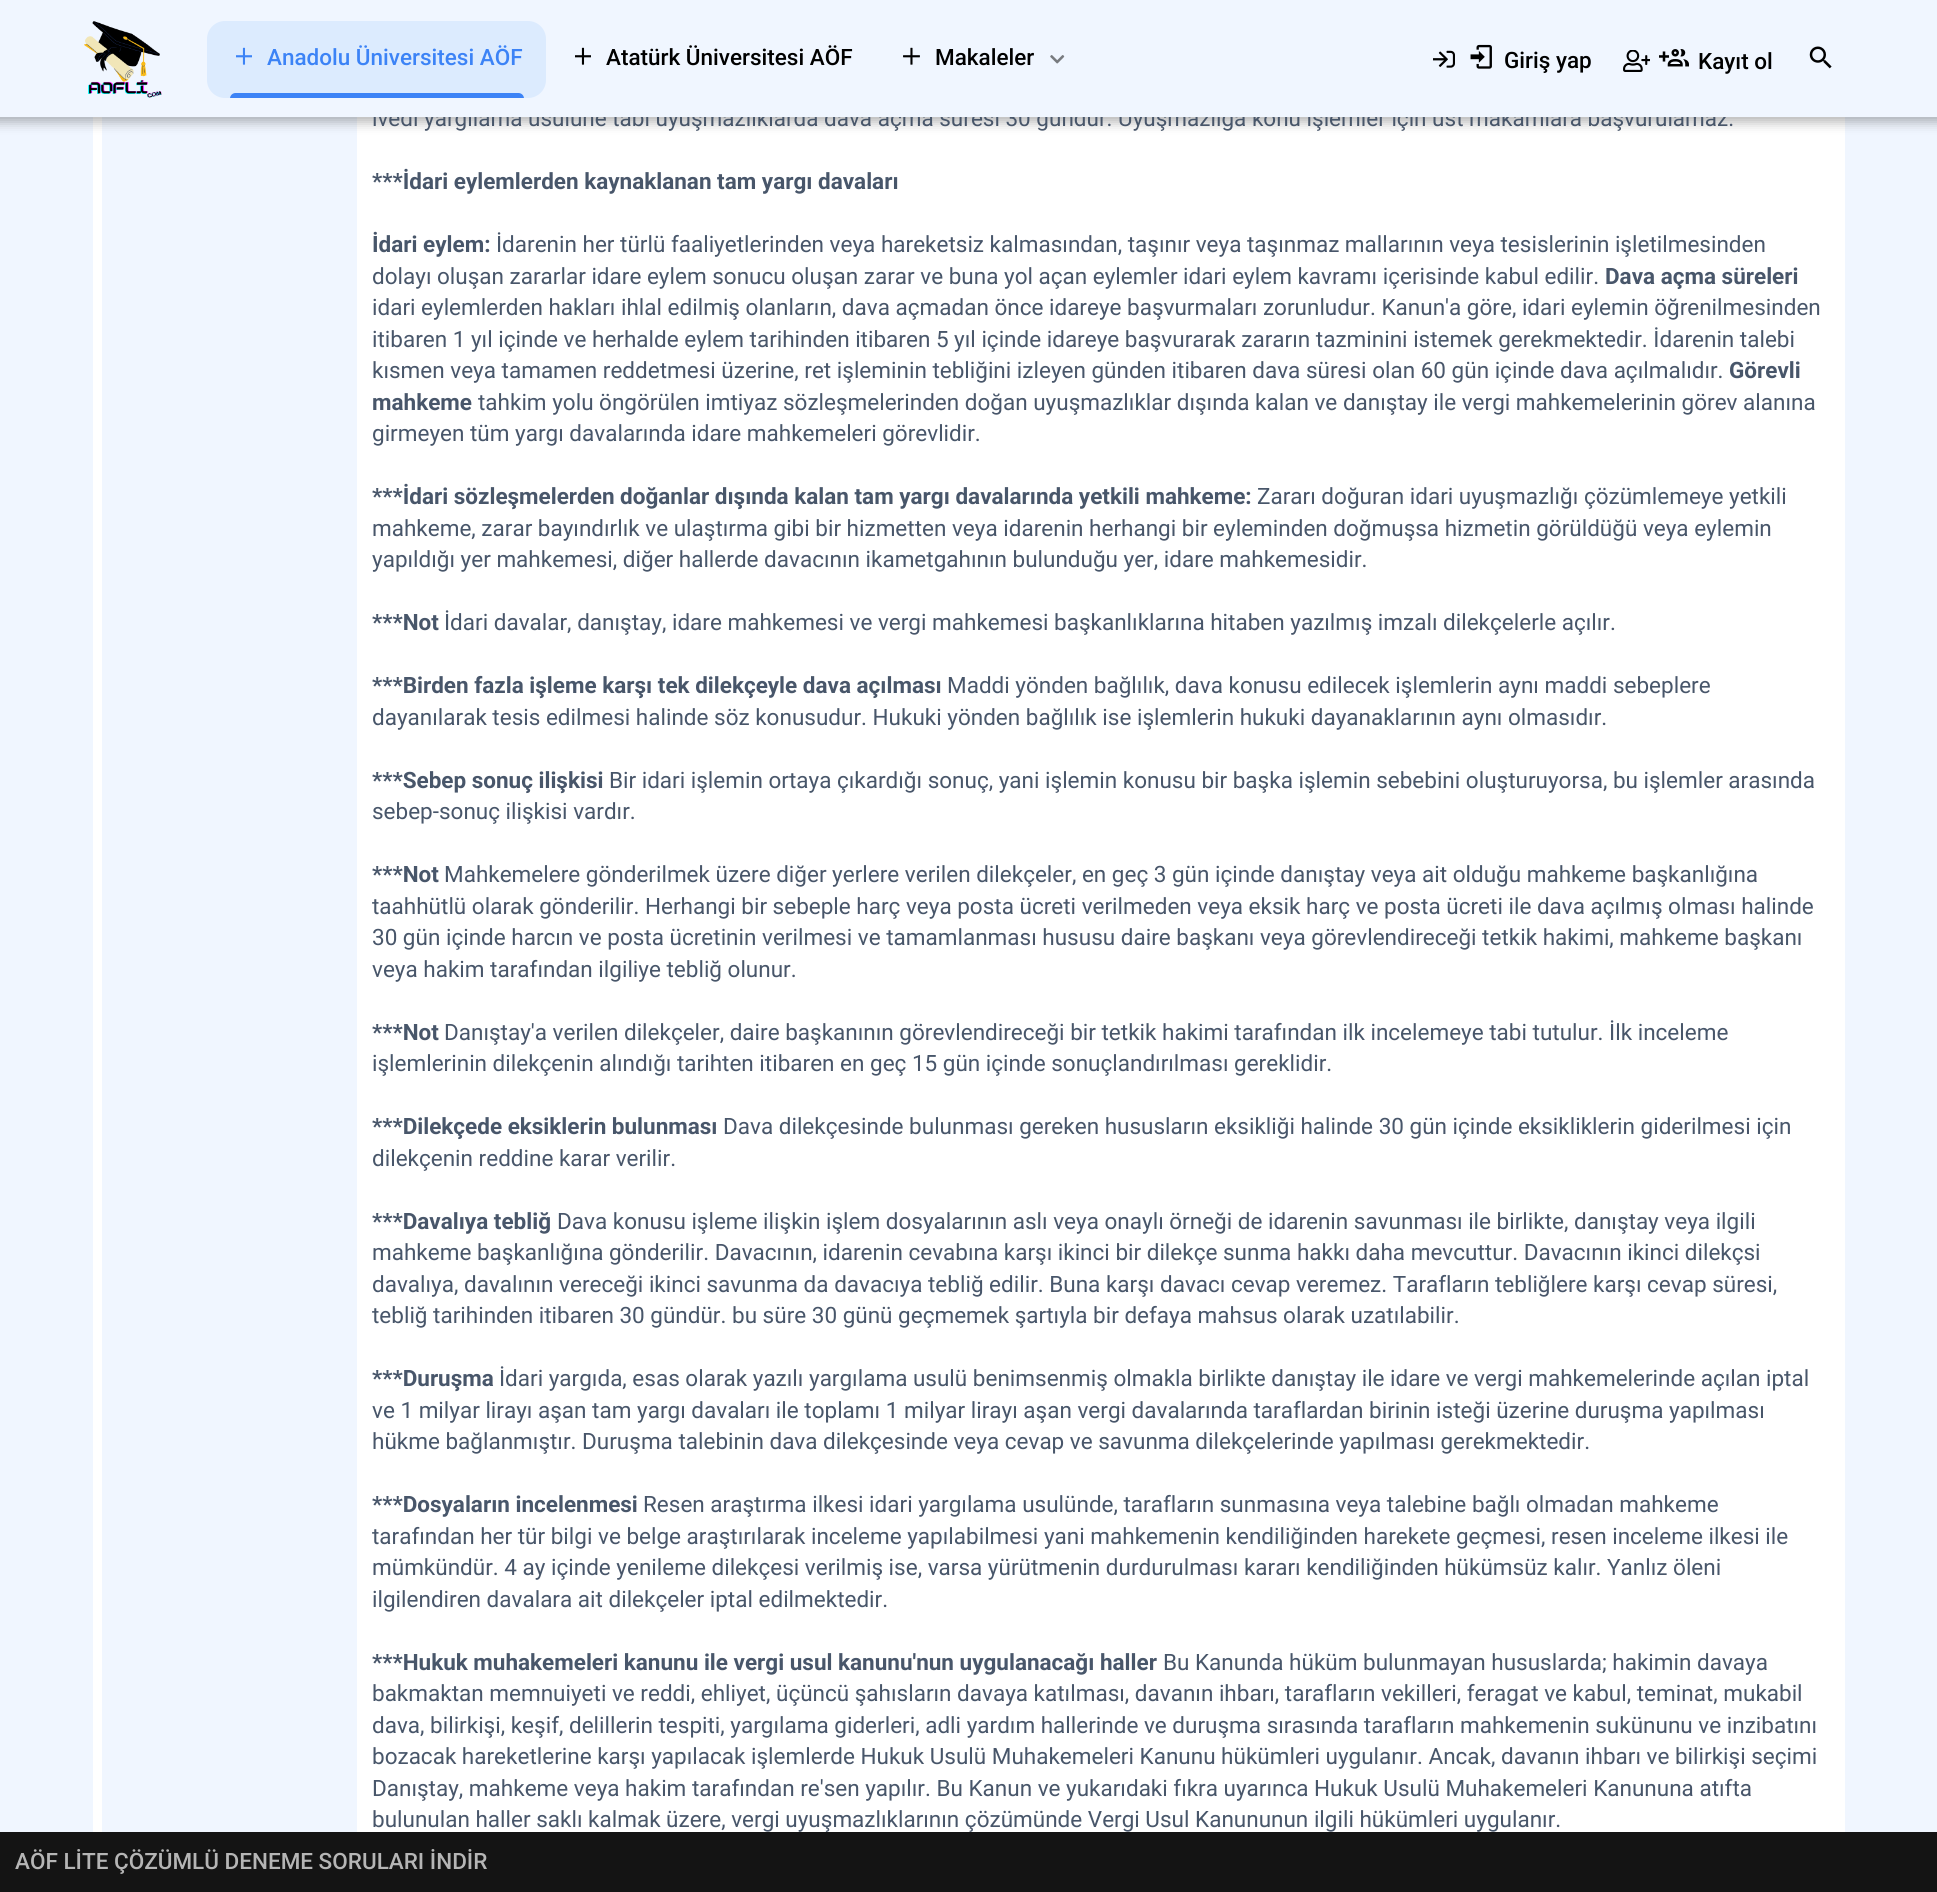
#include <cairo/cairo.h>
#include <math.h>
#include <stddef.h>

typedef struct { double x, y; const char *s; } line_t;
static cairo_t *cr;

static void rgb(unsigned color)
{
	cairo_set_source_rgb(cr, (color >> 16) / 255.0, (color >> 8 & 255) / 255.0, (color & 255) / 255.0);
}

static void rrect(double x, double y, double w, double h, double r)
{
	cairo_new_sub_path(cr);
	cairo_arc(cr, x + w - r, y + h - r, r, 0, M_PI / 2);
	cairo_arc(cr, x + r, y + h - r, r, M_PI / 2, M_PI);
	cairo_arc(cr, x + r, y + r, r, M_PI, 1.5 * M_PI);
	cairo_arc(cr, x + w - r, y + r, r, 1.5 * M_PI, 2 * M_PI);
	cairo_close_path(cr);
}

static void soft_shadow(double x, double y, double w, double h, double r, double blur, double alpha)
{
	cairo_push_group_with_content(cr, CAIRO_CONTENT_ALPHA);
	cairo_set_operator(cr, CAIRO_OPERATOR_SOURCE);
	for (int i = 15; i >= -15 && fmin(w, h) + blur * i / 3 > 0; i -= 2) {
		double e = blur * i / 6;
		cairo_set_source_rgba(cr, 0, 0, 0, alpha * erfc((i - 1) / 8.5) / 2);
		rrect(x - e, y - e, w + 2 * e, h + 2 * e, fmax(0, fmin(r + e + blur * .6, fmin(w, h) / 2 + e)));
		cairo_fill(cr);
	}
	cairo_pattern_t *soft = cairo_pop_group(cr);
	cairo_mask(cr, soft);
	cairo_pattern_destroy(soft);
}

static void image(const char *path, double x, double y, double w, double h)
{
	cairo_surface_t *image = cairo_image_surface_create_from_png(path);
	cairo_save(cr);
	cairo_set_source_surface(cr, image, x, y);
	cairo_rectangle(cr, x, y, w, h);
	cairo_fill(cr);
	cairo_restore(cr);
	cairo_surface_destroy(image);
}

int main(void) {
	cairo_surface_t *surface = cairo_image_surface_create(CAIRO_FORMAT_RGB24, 1937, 1892);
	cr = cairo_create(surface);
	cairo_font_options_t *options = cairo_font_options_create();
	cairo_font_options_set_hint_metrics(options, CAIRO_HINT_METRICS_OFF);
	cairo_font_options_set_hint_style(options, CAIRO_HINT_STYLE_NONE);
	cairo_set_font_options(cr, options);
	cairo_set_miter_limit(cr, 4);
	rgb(0xf0f6ff);
	cairo_paint(cr);
	rgb(0xffffff);
	cairo_rectangle(cr, 93, 117, 1752, 1715);
	cairo_fill(cr);
	rgb(0xf0f6ff);
	cairo_rectangle(cr, 102, 117, 255, 1715);
	cairo_fill(cr);
	rgb(0x000000);
	soft_shadow(-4, -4, 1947, 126, 0, 6, 0.3);
	rgb(0x141414);
	cairo_rectangle(cr, 0, 1832, 1937, 60);
	cairo_fill(cr);
	cairo_select_font_face(cr, "Roboto", CAIRO_FONT_SLANT_NORMAL, CAIRO_FONT_WEIGHT_NORMAL);
	cairo_set_font_size(cr, 22.5);
	rgb(0x48566a);
	cairo_move_to(cr, 372, 126);
	cairo_show_text(cr, "ivedi yargılama usulüne tabi uyuşmazlıklarda dava açma süresi 30 gündür. Uyuşmazlığa konu işlemler için üst makamlara başvurulamaz.");
	rgb(0xf0f6ff);
	cairo_rectangle(cr, 0, 0, 1937, 117);
	cairo_fill(cr);
	image("img/8.png", 1623, 50, 27, 22);
	image("img/6.png", 1433, 50, 22, 18);
	image("img/5.png", 1050, 55, 15, 9);
	image("img/4.png", 903, 47, 17, 18);
	image("img/3.png", 575, 47, 16, 18);
	rgb(0xdcebfe);
	rrect(207, 21, 339, 77, 18);
	cairo_fill(cr);
	rgb(0x3c83f6);
	cairo_new_path(cr);
	cairo_move_to(cr, 235.5, 93);
	cairo_line_to(cr, 518.5, 93);
	cairo_curve_to(cr, 521.5, 93, 524, 95.5, 524, 98.5);
	cairo_line_to(cr, 524, 98);
	cairo_line_to(cr, 230, 98);
	cairo_line_to(cr, 230, 98.5);
	cairo_curve_to(cr, 230, 95.5, 232.5, 93, 235.5, 93);
	cairo_close_path(cr);
	cairo_fill(cr);
	image("img/2.png", 236, 47, 16, 18);
	cairo_select_font_face(cr, "Roboto Medium", CAIRO_FONT_SLANT_NORMAL, CAIRO_FONT_WEIGHT_NORMAL);
	cairo_move_to(cr, 267, 65);
	cairo_show_text(cr, "Anadolu Üniversitesi AÖF");
	rgb(0x000000);
	cairo_move_to(cr, 935, 65);
	cairo_show_text(cr, "Makaleler");
	cairo_move_to(cr, 606, 65);
	cairo_show_text(cr, "Atatürk Üniversitesi AÖF");
	image("img/10.png", 1809, 46, 23, 23);
	cairo_move_to(cr, 1698, 69);
	cairo_show_text(cr, "Kayıt ol");
	image("img/9.png", 1659, 49, 30, 18);
	cairo_move_to(cr, 1504, 68);
	cairo_show_text(cr, "Giriş yap");
	image("img/7.png", 1470, 44, 22, 25);
	image("img/1.png", 84, 21, 78, 77);
	cairo_select_font_face(cr, "Roboto", CAIRO_FONT_SLANT_NORMAL, CAIRO_FONT_WEIGHT_BOLD);
	rgb(0x48566a);
	cairo_move_to(cr, 372, 189);
	cairo_show_text(cr, "***İdari eylemlerden kaynaklanan tam yargı davaları");
	cairo_move_to(cr, 372, 252);
	cairo_show_text(cr, "İdari eylem:");
	cairo_select_font_face(cr, "Roboto", CAIRO_FONT_SLANT_NORMAL, CAIRO_FONT_WEIGHT_NORMAL);
	cairo_move_to(cr, 496, 252);
	cairo_show_text(cr, "İdarenin her türlü faaliyetlerinden veya hareketsiz kalmasından, taşınır veya taşınmaz mallarının veya tesislerinin işletilmesinden");
	cairo_move_to(cr, 372, 284);
	cairo_show_text(cr, "dolayı oluşan zararlar idare eylem sonucu oluşan zarar ve buna yol açan eylemler idari eylem kavramı içerisinde kabul edilir.");
	cairo_select_font_face(cr, "Roboto", CAIRO_FONT_SLANT_NORMAL, CAIRO_FONT_WEIGHT_BOLD);
	cairo_move_to(cr, 1605, 284);
	cairo_show_text(cr, "Dava açma süreleri");
	cairo_select_font_face(cr, "Roboto", CAIRO_FONT_SLANT_NORMAL, CAIRO_FONT_WEIGHT_NORMAL);
	{
		static const line_t items[] = {
			{372, 315, "idari eylemlerden hakları ihlal edilmiş olanların, dava açmadan önce idareye başvurmaları zorunludur. Kanun'a göre, idari eylemin öğrenilmesinden"},
			{372, 347, "itibaren 1 yıl içinde ve herhalde eylem tarihinden itibaren 5 yıl içinde idareye başvurarak zararın tazminini istemek gerekmektedir. İdarenin talebi"},
			{372, 378, "kısmen veya tamamen reddetmesi üzerine, ret işleminin tebliğini izleyen günden itibaren dava süresi olan 60 gün içinde dava açılmalıdır."},
		};
		for (size_t i = 0; i < sizeof items / sizeof *items; i++) {
			cairo_move_to(cr, items[i].x, items[i].y);
			cairo_show_text(cr, items[i].s);
		}
	}
	cairo_select_font_face(cr, "Roboto", CAIRO_FONT_SLANT_NORMAL, CAIRO_FONT_WEIGHT_BOLD);
	cairo_move_to(cr, 1729, 378);
	cairo_show_text(cr, "Görevli");
	cairo_move_to(cr, 372, 410);
	cairo_show_text(cr, "mahkeme");
	cairo_select_font_face(cr, "Roboto", CAIRO_FONT_SLANT_NORMAL, CAIRO_FONT_WEIGHT_NORMAL);
	cairo_move_to(cr, 478, 410);
	cairo_show_text(cr, "tahkim yolu öngörülen imtiyaz sözleşmelerinden doğan uyuşmazlıklar dışında kalan ve danıştay ile vergi mahkemelerinin görev alanına");
	cairo_move_to(cr, 372, 441);
	cairo_show_text(cr, "girmeyen tüm yargı davalarında idare mahkemeleri görevlidir.");
	cairo_select_font_face(cr, "Roboto", CAIRO_FONT_SLANT_NORMAL, CAIRO_FONT_WEIGHT_BOLD);
	cairo_move_to(cr, 372, 504);
	cairo_show_text(cr, "***İdari sözleşmelerden doğanlar dışında kalan tam yargı davalarında yetkili mahkeme:");
	cairo_select_font_face(cr, "Roboto", CAIRO_FONT_SLANT_NORMAL, CAIRO_FONT_WEIGHT_NORMAL);
	{
		static const line_t items[] = {
			{1257, 504, "Zararı doğuran idari uyuşmazlığı çözümlemeye yetkili"},
			{372, 536, "mahkeme, zarar bayındırlık ve ulaştırma gibi bir hizmetten veya idarenin herhangi bir eyleminden doğmuşsa hizmetin görüldüğü veya eylemin"},
			{372, 567, "yapıldığı yer mahkemesi, diğer hallerde davacının ikametgahının bulunduğu yer, idare mahkemesidir."},
		};
		for (size_t i = 0; i < sizeof items / sizeof *items; i++) {
			cairo_move_to(cr, items[i].x, items[i].y);
			cairo_show_text(cr, items[i].s);
		}
	}
	cairo_select_font_face(cr, "Roboto", CAIRO_FONT_SLANT_NORMAL, CAIRO_FONT_WEIGHT_BOLD);
	cairo_move_to(cr, 372, 630);
	cairo_show_text(cr, "***Not");
	cairo_select_font_face(cr, "Roboto", CAIRO_FONT_SLANT_NORMAL, CAIRO_FONT_WEIGHT_NORMAL);
	cairo_move_to(cr, 444, 630);
	cairo_show_text(cr, "İdari davalar, danıştay, idare mahkemesi ve vergi mahkemesi başkanlıklarına hitaben yazılmış imzalı dilekçelerle açılır.");
	cairo_select_font_face(cr, "Roboto", CAIRO_FONT_SLANT_NORMAL, CAIRO_FONT_WEIGHT_BOLD);
	cairo_move_to(cr, 372, 693);
	cairo_show_text(cr, "***Birden fazla işleme karşı tek dilekçeyle dava açılması");
	cairo_select_font_face(cr, "Roboto", CAIRO_FONT_SLANT_NORMAL, CAIRO_FONT_WEIGHT_NORMAL);
	cairo_move_to(cr, 947, 693);
	cairo_show_text(cr, "Maddi yönden bağlılık, dava konusu edilecek işlemlerin aynı maddi sebeplere");
	cairo_move_to(cr, 372, 725);
	cairo_show_text(cr, "dayanılarak tesis edilmesi halinde söz konusudur. Hukuki yönden bağlılık ise işlemlerin hukuki dayanaklarının aynı olmasıdır.");
	cairo_select_font_face(cr, "Roboto", CAIRO_FONT_SLANT_NORMAL, CAIRO_FONT_WEIGHT_BOLD);
	cairo_move_to(cr, 372, 788);
	cairo_show_text(cr, "***Sebep sonuç ilişkisi");
	cairo_select_font_face(cr, "Roboto", CAIRO_FONT_SLANT_NORMAL, CAIRO_FONT_WEIGHT_NORMAL);
	cairo_move_to(cr, 609, 788);
	cairo_show_text(cr, "Bir idari işlemin ortaya çıkardığı sonuç, yani işlemin konusu bir başka işlemin sebebini oluşturuyorsa, bu işlemler arasında");
	cairo_move_to(cr, 372, 819);
	cairo_show_text(cr, "sebep-sonuç ilişkisi vardır.");
	cairo_select_font_face(cr, "Roboto", CAIRO_FONT_SLANT_NORMAL, CAIRO_FONT_WEIGHT_BOLD);
	cairo_move_to(cr, 372, 882);
	cairo_show_text(cr, "***Not");
	cairo_select_font_face(cr, "Roboto", CAIRO_FONT_SLANT_NORMAL, CAIRO_FONT_WEIGHT_NORMAL);
	{
		static const line_t items[] = {
			{444, 882, "Mahkemelere gönderilmek üzere diğer yerlere verilen dilekçeler, en geç 3 gün içinde danıştay veya ait olduğu mahkeme başkanlığına"},
			{372, 914, "taahhütlü olarak gönderilir. Herhangi bir sebeple harç veya posta ücreti verilmeden veya eksik harç ve posta ücreti ile dava açılmış olması halinde"},
			{372, 945, "30 gün içinde harcın ve posta ücretinin verilmesi ve tamamlanması hususu daire başkanı veya görevlendireceği tetkik hakimi, mahkeme başkanı"},
			{372, 977, "veya hakim tarafından ilgiliye tebliğ olunur."},
		};
		for (size_t i = 0; i < sizeof items / sizeof *items; i++) {
			cairo_move_to(cr, items[i].x, items[i].y);
			cairo_show_text(cr, items[i].s);
		}
	}
	cairo_select_font_face(cr, "Roboto", CAIRO_FONT_SLANT_NORMAL, CAIRO_FONT_WEIGHT_BOLD);
	cairo_move_to(cr, 372, 1040);
	cairo_show_text(cr, "***Not");
	cairo_select_font_face(cr, "Roboto", CAIRO_FONT_SLANT_NORMAL, CAIRO_FONT_WEIGHT_NORMAL);
	cairo_move_to(cr, 444, 1040);
	cairo_show_text(cr, "Danıştay'a verilen dilekçeler, daire başkanının görevlendireceği bir tetkik hakimi tarafından ilk incelemeye tabi tutulur. İlk inceleme");
	cairo_move_to(cr, 372, 1071);
	cairo_show_text(cr, "işlemlerinin dilekçenin alındığı tarihten itibaren en geç 15 gün içinde sonuçlandırılması gereklidir.");
	cairo_select_font_face(cr, "Roboto", CAIRO_FONT_SLANT_NORMAL, CAIRO_FONT_WEIGHT_BOLD);
	cairo_move_to(cr, 372, 1134);
	cairo_show_text(cr, "***Dilekçede eksiklerin bulunması");
	cairo_select_font_face(cr, "Roboto", CAIRO_FONT_SLANT_NORMAL, CAIRO_FONT_WEIGHT_NORMAL);
	cairo_move_to(cr, 723, 1134);
	cairo_show_text(cr, "Dava dilekçesinde bulunması gereken hususların eksikliği halinde 30 gün içinde eksikliklerin giderilmesi için");
	cairo_move_to(cr, 372, 1166);
	cairo_show_text(cr, "dilekçenin reddine karar verilir.");
	cairo_select_font_face(cr, "Roboto", CAIRO_FONT_SLANT_NORMAL, CAIRO_FONT_WEIGHT_BOLD);
	cairo_move_to(cr, 372, 1229);
	cairo_show_text(cr, "***Davalıya tebliğ");
	cairo_select_font_face(cr, "Roboto", CAIRO_FONT_SLANT_NORMAL, CAIRO_FONT_WEIGHT_NORMAL);
	{
		static const line_t items[] = {
			{557, 1229, "Dava konusu işleme ilişkin işlem dosyalarının aslı veya onaylı örneği de idarenin savunması ile birlikte, danıştay veya ilgili"},
			{372, 1260, "mahkeme başkanlığına gönderilir. Davacının, idarenin cevabına karşı ikinci bir dilekçe sunma hakkı daha mevcuttur. Davacının ikinci dilekçsi"},
			{372, 1292, "davalıya, davalının vereceği ikinci savunma da davacıya tebliğ edilir. Buna karşı davacı cevap veremez. Tarafların tebliğlere karşı cevap süresi,"},
			{372, 1323, "tebliğ tarihinden itibaren 30 gündür. bu süre 30 günü geçmemek şartıyla bir defaya mahsus olarak uzatılabilir."},
		};
		for (size_t i = 0; i < sizeof items / sizeof *items; i++) {
			cairo_move_to(cr, items[i].x, items[i].y);
			cairo_show_text(cr, items[i].s);
		}
	}
	cairo_select_font_face(cr, "Roboto", CAIRO_FONT_SLANT_NORMAL, CAIRO_FONT_WEIGHT_BOLD);
	cairo_move_to(cr, 372, 1386);
	cairo_show_text(cr, "***Duruşma");
	cairo_select_font_face(cr, "Roboto", CAIRO_FONT_SLANT_NORMAL, CAIRO_FONT_WEIGHT_NORMAL);
	{
		static const line_t items[] = {
			{499, 1386, "İdari yargıda, esas olarak yazılı yargılama usulü benimsenmiş olmakla birlikte danıştay ile idare ve vergi mahkemelerinde açılan iptal"},
			{372, 1418, "ve 1 milyar lirayı aşan tam yargı davaları ile toplamı 1 milyar lirayı aşan vergi davalarında taraflardan birinin isteği üzerine duruşma yapılması"},
			{372, 1449, "hükme bağlanmıştır. Duruşma talebinin dava dilekçesinde veya cevap ve savunma dilekçelerinde yapılması gerekmektedir."},
		};
		for (size_t i = 0; i < sizeof items / sizeof *items; i++) {
			cairo_move_to(cr, items[i].x, items[i].y);
			cairo_show_text(cr, items[i].s);
		}
	}
	cairo_select_font_face(cr, "Roboto", CAIRO_FONT_SLANT_NORMAL, CAIRO_FONT_WEIGHT_BOLD);
	cairo_move_to(cr, 372, 1512);
	cairo_show_text(cr, "***Dosyaların incelenmesi");
	cairo_select_font_face(cr, "Roboto", CAIRO_FONT_SLANT_NORMAL, CAIRO_FONT_WEIGHT_NORMAL);
	{
		static const line_t items[] = {
			{643, 1512, "Resen araştırma ilkesi idari yargılama usulünde, tarafların sunmasına veya talebine bağlı olmadan mahkeme"},
			{372, 1544, "tarafından her tür bilgi ve belge araştırılarak inceleme yapılabilmesi yani mahkemenin kendiliğinden harekete geçmesi, resen inceleme ilkesi ile"},
			{372, 1575, "mümkündür. 4 ay içinde yenileme dilekçesi verilmiş ise, varsa yürütmenin durdurulması kararı kendiliğinden hükümsüz kalır. Yanlız öleni"},
			{372, 1607, "ilgilendiren davalara ait dilekçeler iptal edilmektedir."},
		};
		for (size_t i = 0; i < sizeof items / sizeof *items; i++) {
			cairo_move_to(cr, items[i].x, items[i].y);
			cairo_show_text(cr, items[i].s);
		}
	}
	cairo_select_font_face(cr, "Roboto", CAIRO_FONT_SLANT_NORMAL, CAIRO_FONT_WEIGHT_BOLD);
	cairo_move_to(cr, 372, 1670);
	cairo_show_text(cr, "***Hukuk muhakemeleri kanunu ile vergi usul kanunu'nun uygulanacağı haller");
	cairo_select_font_face(cr, "Roboto", CAIRO_FONT_SLANT_NORMAL, CAIRO_FONT_WEIGHT_NORMAL);
	{
		static const line_t items[] = {
			{1163, 1670, "Bu Kanunda hüküm bulunmayan hususlarda; hakimin davaya"},
			{372, 1701, "bakmaktan memnuiyeti ve reddi, ehliyet, üçüncü şahısların davaya katılması, davanın ihbarı, tarafların vekilleri, feragat ve kabul, teminat, mukabil"},
			{372, 1733, "dava, bilirkişi, keşif, delillerin tespiti, yargılama giderleri, adli yardım hallerinde ve duruşma sırasında tarafların mahkemenin sukünunu ve inzibatını"},
			{372, 1764, "bozacak hareketlerine karşı yapılacak işlemlerde Hukuk Usulü Muhakemeleri Kanunu hükümleri uygulanır. Ancak, davanın ihbarı ve bilirkişi seçimi"},
			{372, 1796, "Danıştay, mahkeme veya hakim tarafından re'sen yapılır. Bu Kanun ve yukarıdaki fıkra uyarınca Hukuk Usulü Muhakemeleri Kanununa atıfta"},
			{372, 1827, "bulunulan haller saklı kalmak üzere, vergi uyuşmazlıklarının çözümünde Vergi Usul Kanununun ilgili hükümleri uygulanır."},
		};
		for (size_t i = 0; i < sizeof items / sizeof *items; i++) {
			cairo_move_to(cr, items[i].x, items[i].y);
			cairo_show_text(cr, items[i].s);
		}
	}
	cairo_select_font_face(cr, "Roboto Medium", CAIRO_FONT_SLANT_NORMAL, CAIRO_FONT_WEIGHT_NORMAL);
	rgb(0xb5b5b5);
	cairo_move_to(cr, 15, 1869);
	cairo_show_text(cr, "AÖF LİTE ÇÖZÜMLÜ DENEME SORULARI İNDİR");
	cairo_surface_write_to_png(surface, "page.png");
	cairo_font_options_destroy(options);
	cairo_destroy(cr);
	cairo_surface_destroy(surface);
	return 0;
}
